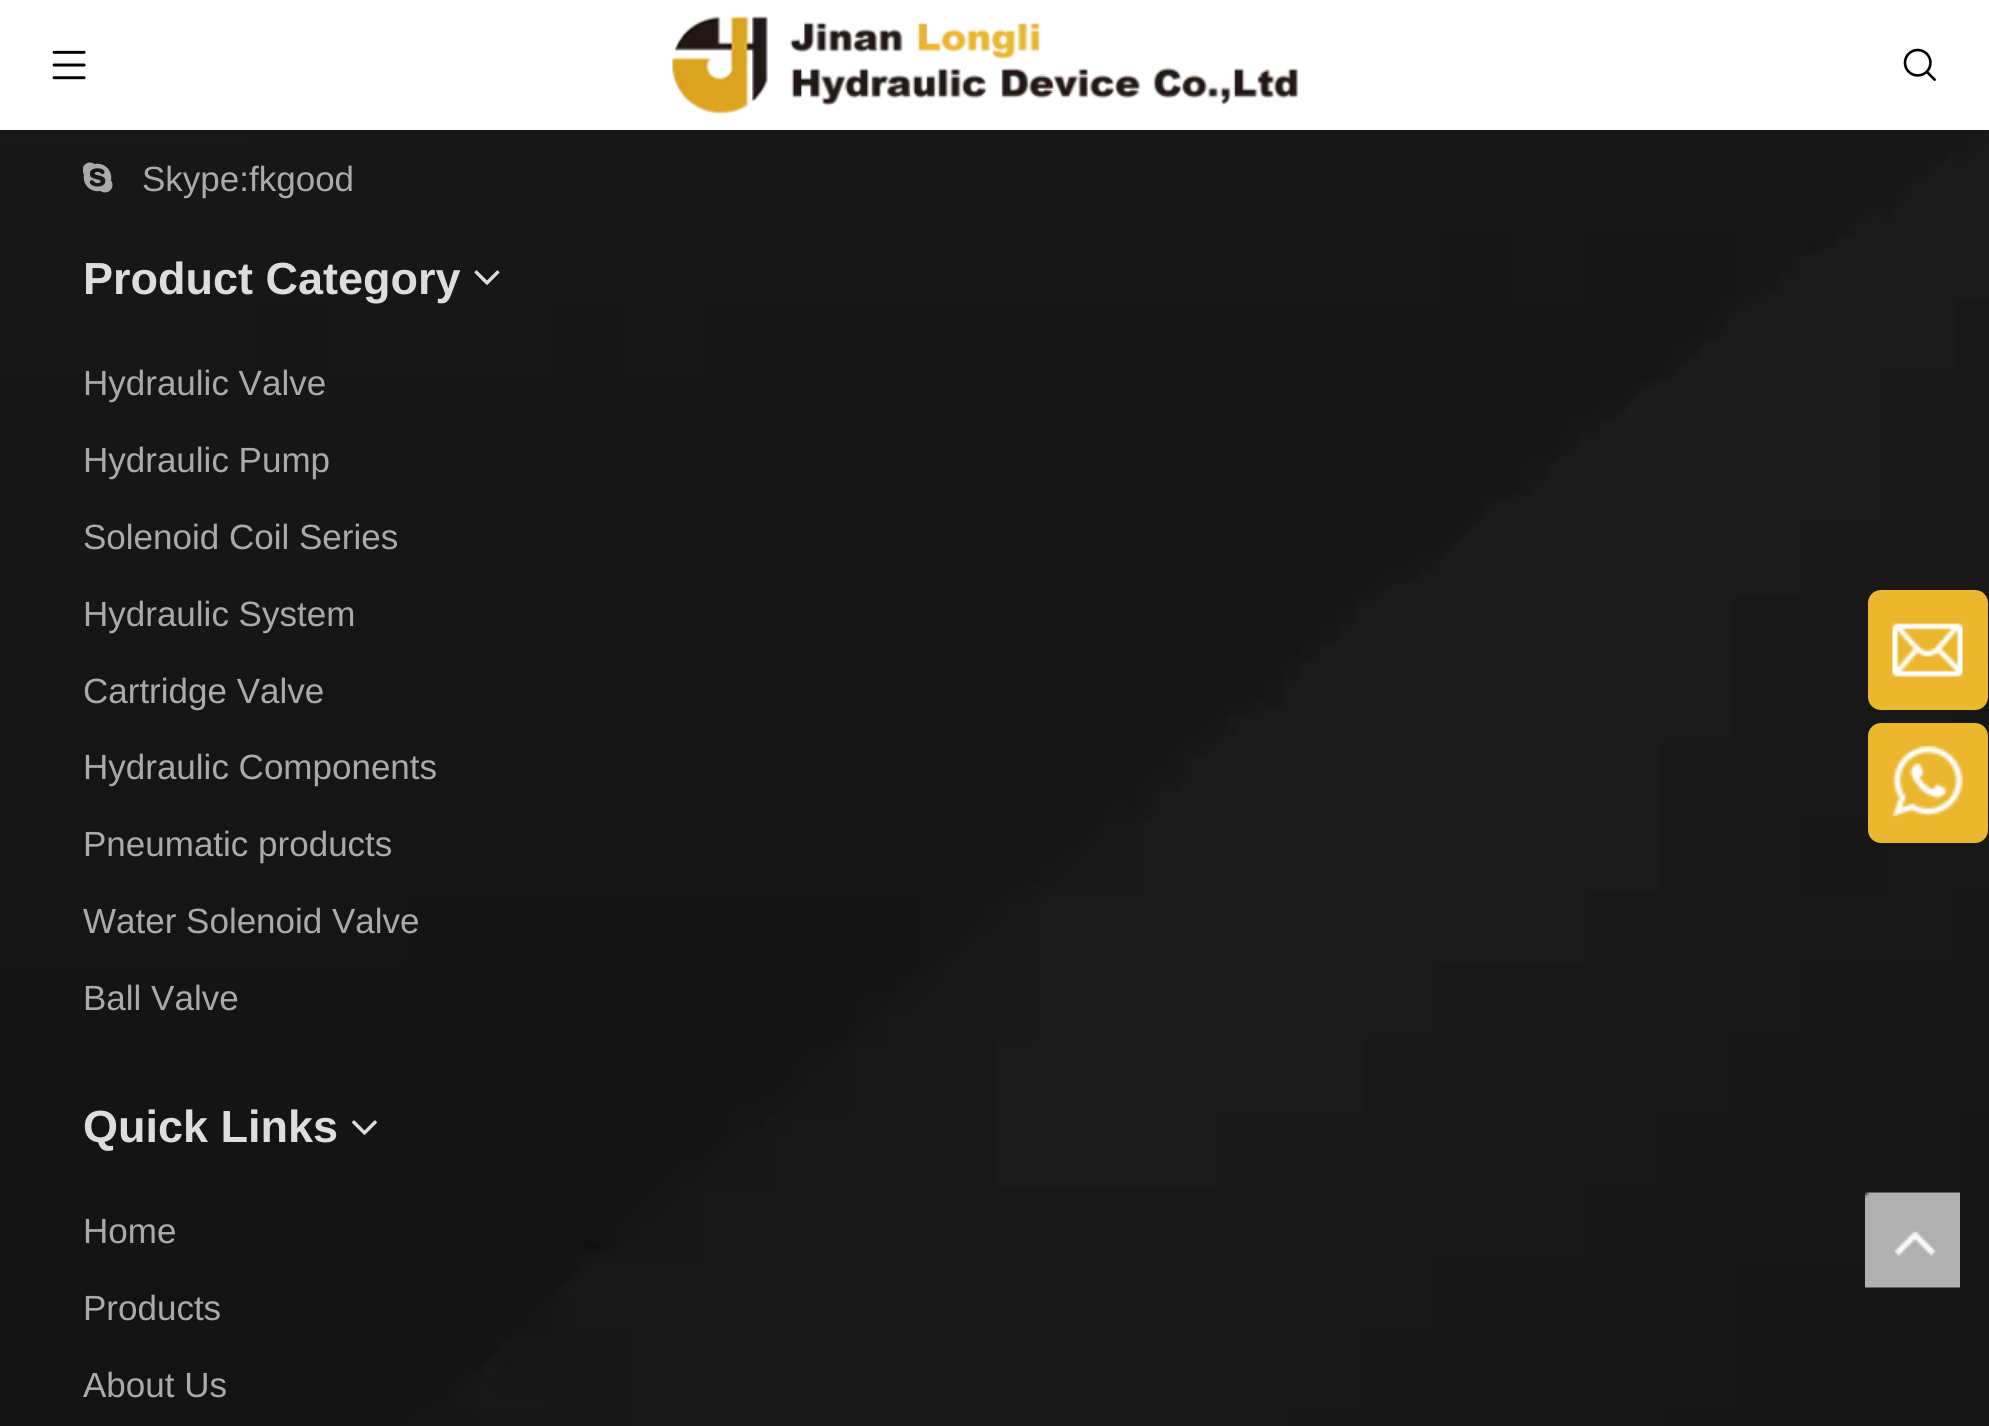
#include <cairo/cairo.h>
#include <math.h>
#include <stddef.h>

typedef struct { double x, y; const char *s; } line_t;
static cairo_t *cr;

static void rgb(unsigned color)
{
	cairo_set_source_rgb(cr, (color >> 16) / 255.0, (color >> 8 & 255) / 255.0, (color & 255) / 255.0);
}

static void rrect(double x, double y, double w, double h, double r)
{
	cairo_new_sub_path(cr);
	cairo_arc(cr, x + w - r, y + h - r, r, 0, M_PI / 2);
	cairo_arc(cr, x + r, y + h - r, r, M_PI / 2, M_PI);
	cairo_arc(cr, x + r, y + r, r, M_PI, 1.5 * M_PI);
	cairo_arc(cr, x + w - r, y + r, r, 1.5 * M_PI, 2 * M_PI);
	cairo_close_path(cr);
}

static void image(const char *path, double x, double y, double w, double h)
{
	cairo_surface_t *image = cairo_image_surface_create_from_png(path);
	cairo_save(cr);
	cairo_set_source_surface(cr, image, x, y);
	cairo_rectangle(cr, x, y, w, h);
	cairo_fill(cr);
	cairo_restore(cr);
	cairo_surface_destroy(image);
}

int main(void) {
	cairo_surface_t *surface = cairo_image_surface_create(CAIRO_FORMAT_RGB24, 1989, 1426);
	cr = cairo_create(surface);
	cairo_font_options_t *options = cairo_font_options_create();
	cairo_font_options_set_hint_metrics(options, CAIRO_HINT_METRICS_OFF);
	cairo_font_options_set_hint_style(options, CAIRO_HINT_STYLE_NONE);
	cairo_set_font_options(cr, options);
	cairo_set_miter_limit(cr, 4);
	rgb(0xffffff);
	cairo_paint(cr);
	image("img/1.png", 52, 50, 34, 30);
	image("img/2.png", 672, 16, 626, 98);
	image("img/3.png", 1903, 48, 33, 33);
	image("img/4.png", 0, 130, 1989, 1296);
	image("img/5.png", 83, 162, 30, 31);
	image("img/6.png", 474, 270, 26, 15);
	image("img/7.png", 352, 1120, 25, 15);
	rgb(0xebb72f);
	rrect(1868, 590, 120, 120, 13);
	cairo_fill(cr);
	image("img/8.png", 1892, 623, 71, 54);
	rrect(1868, 723, 120, 120, 13);
	cairo_fill(cr);
	image("img/9.png", 1892, 746, 71, 71);
	image("img/10.png", 1865, 1192, 95, 96);
	cairo_select_font_face(cr, "Liberation Sans", CAIRO_FONT_SLANT_NORMAL, CAIRO_FONT_WEIGHT_NORMAL);
	cairo_set_font_size(cr, 35);
	rgb(0xaaaaaa);
	cairo_move_to(cr, 142, 191);
	cairo_show_text(cr, "Skype:fkgood");
	cairo_select_font_face(cr, "Liberation Sans", CAIRO_FONT_SLANT_NORMAL, CAIRO_FONT_WEIGHT_BOLD);
	cairo_set_font_size(cr, 45);
	rgb(0xdddddd);
	cairo_move_to(cr, 83, 294);
	cairo_show_text(cr, "Product Category");
	cairo_select_font_face(cr, "Liberation Sans", CAIRO_FONT_SLANT_NORMAL, CAIRO_FONT_WEIGHT_NORMAL);
	cairo_set_font_size(cr, 35);
	rgb(0xaaaaaa);
	{
		static const line_t items[] = {
			{83, 395, "Hydraulic Valve"},
			{83, 472, "Hydraulic Pump"},
			{83, 549, "Solenoid Coil Series"},
			{83, 626, "Hydraulic System"},
			{83, 703, "Cartridge Valve"},
			{83, 779, "Hydraulic Components"},
			{83, 856, "Pneumatic products"},
			{83, 933, "Water Solenoid Valve"},
			{83, 1010, "Ball Valve"},
		};
		for (size_t i = 0; i < sizeof items / sizeof *items; i++) {
			cairo_move_to(cr, items[i].x, items[i].y);
			cairo_show_text(cr, items[i].s);
		}
	}
	cairo_select_font_face(cr, "Liberation Sans", CAIRO_FONT_SLANT_NORMAL, CAIRO_FONT_WEIGHT_BOLD);
	cairo_set_font_size(cr, 45);
	rgb(0xdddddd);
	cairo_move_to(cr, 83, 1142);
	cairo_show_text(cr, "Quick Links");
	cairo_select_font_face(cr, "Liberation Sans", CAIRO_FONT_SLANT_NORMAL, CAIRO_FONT_WEIGHT_NORMAL);
	cairo_set_font_size(cr, 35);
	rgb(0xaaaaaa);
	{
		static const line_t items[] = {
			{83, 1243, "Home"},
			{83, 1320, "Products"},
			{83, 1397, "About Us"},
		};
		for (size_t i = 0; i < sizeof items / sizeof *items; i++) {
			cairo_move_to(cr, items[i].x, items[i].y);
			cairo_show_text(cr, items[i].s);
		}
	}
	cairo_surface_write_to_png(surface, "page.png");
	cairo_font_options_destroy(options);
	cairo_destroy(cr);
	cairo_surface_destroy(surface);
	return 0;
}
